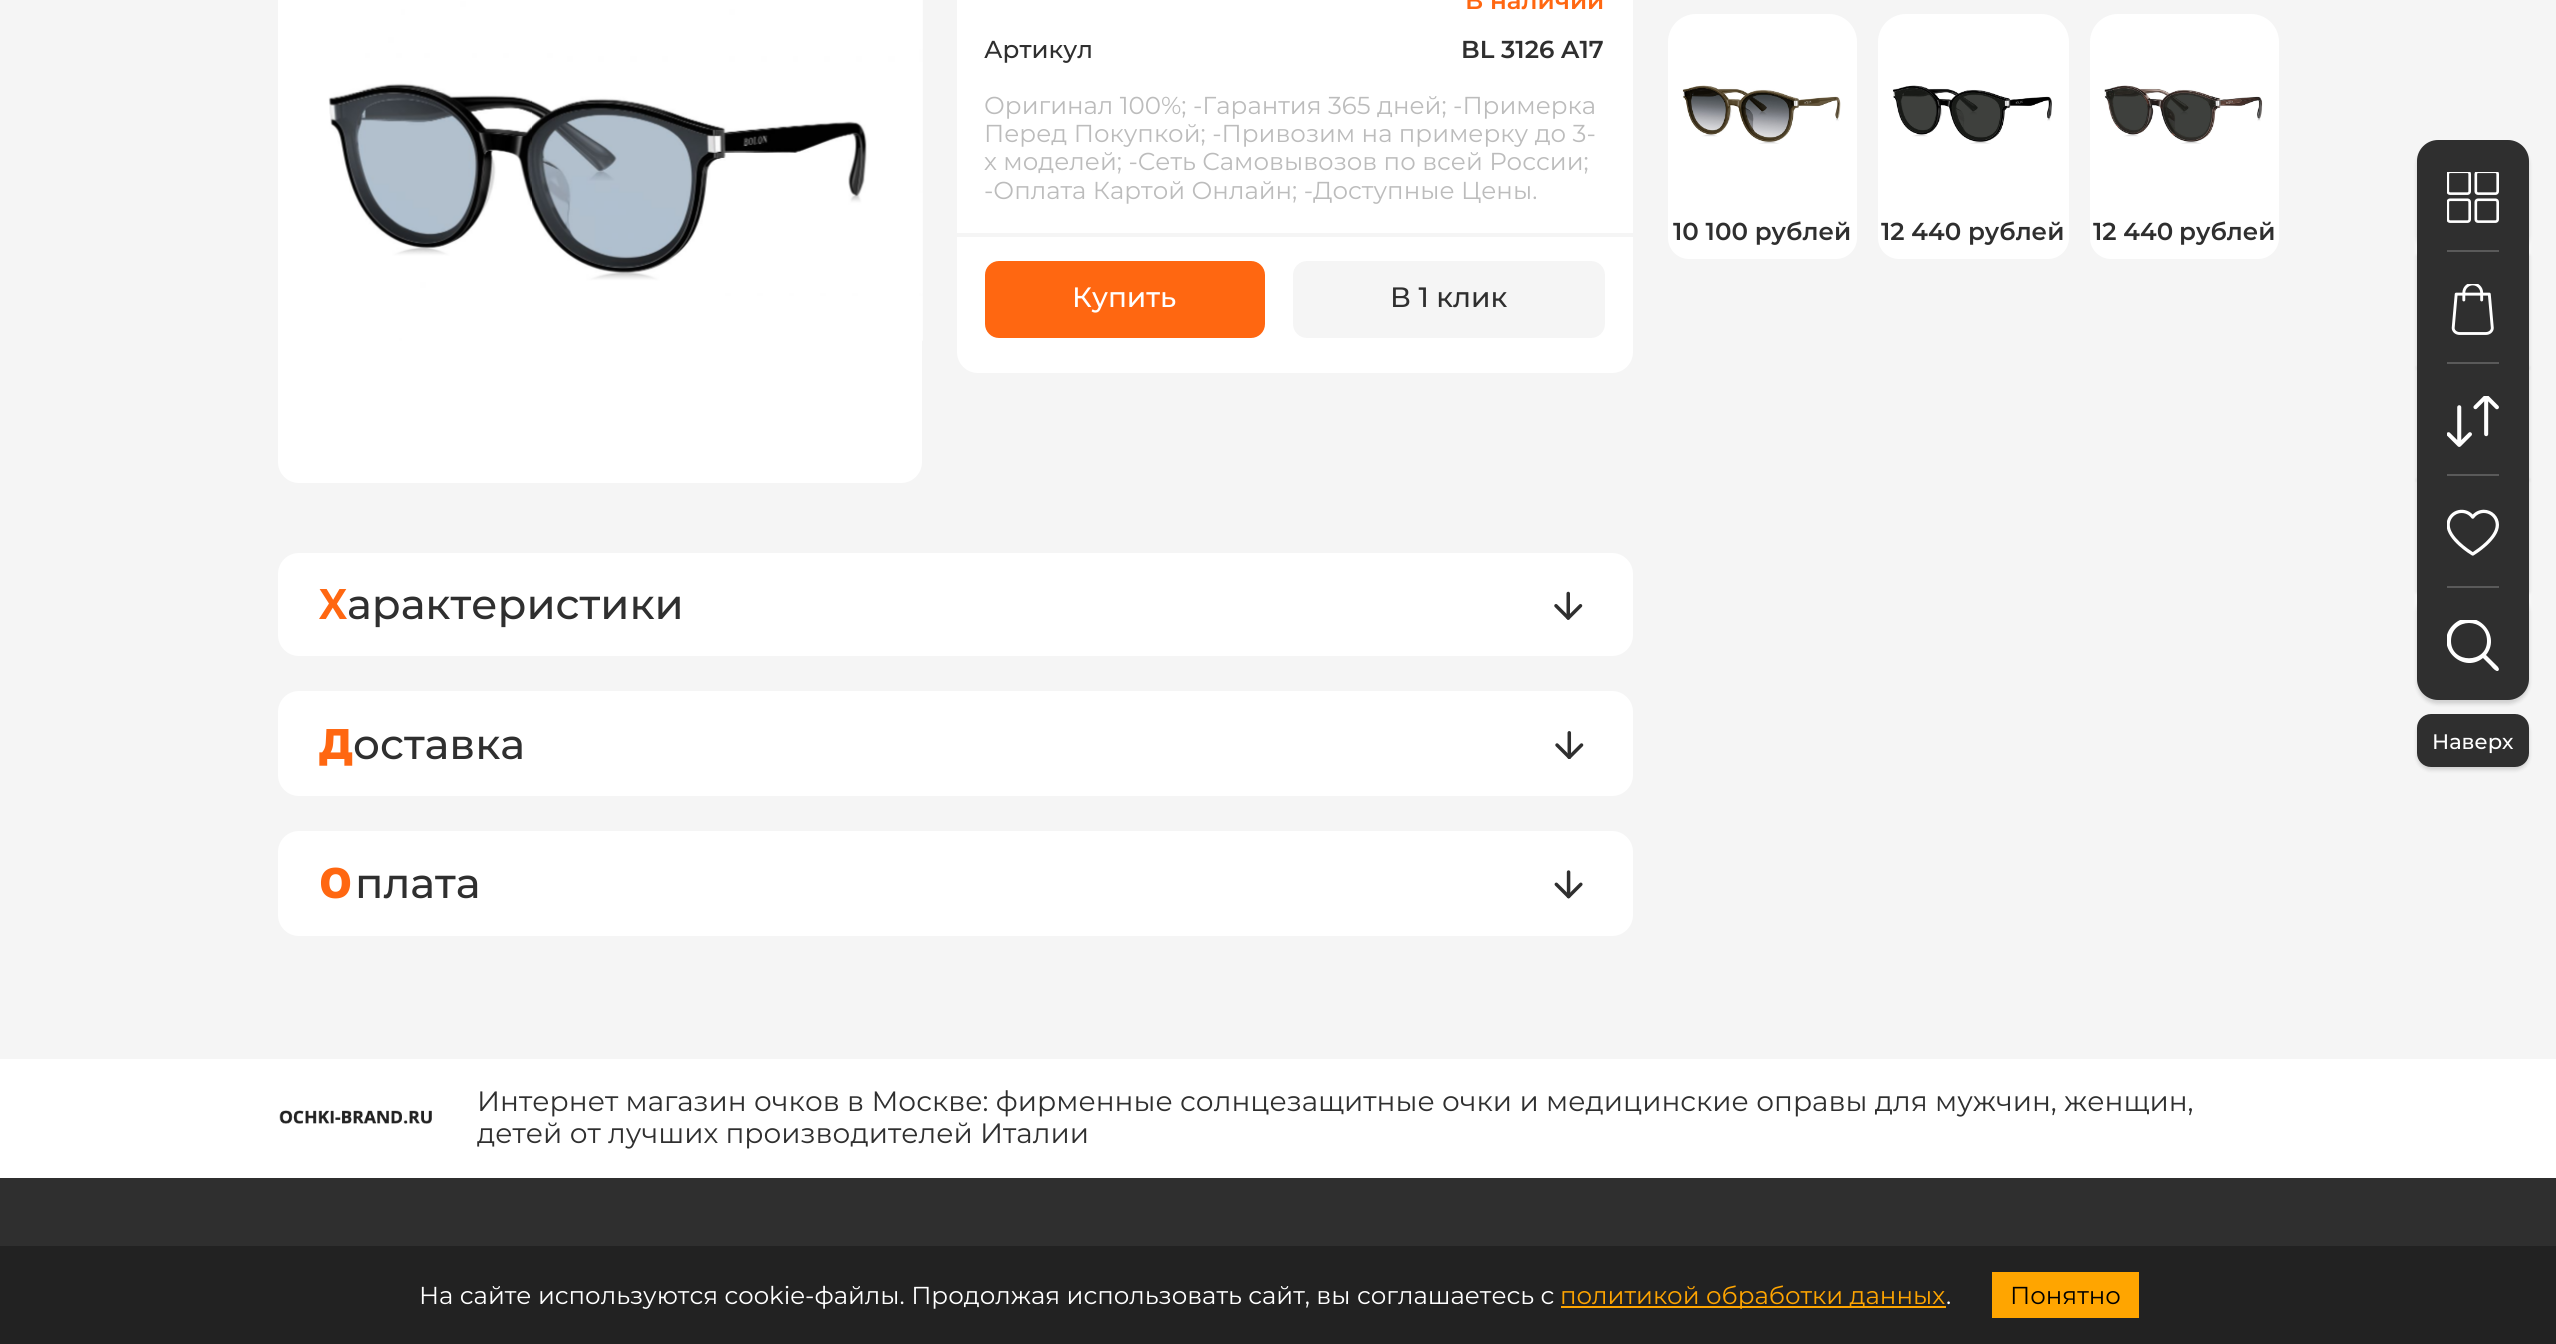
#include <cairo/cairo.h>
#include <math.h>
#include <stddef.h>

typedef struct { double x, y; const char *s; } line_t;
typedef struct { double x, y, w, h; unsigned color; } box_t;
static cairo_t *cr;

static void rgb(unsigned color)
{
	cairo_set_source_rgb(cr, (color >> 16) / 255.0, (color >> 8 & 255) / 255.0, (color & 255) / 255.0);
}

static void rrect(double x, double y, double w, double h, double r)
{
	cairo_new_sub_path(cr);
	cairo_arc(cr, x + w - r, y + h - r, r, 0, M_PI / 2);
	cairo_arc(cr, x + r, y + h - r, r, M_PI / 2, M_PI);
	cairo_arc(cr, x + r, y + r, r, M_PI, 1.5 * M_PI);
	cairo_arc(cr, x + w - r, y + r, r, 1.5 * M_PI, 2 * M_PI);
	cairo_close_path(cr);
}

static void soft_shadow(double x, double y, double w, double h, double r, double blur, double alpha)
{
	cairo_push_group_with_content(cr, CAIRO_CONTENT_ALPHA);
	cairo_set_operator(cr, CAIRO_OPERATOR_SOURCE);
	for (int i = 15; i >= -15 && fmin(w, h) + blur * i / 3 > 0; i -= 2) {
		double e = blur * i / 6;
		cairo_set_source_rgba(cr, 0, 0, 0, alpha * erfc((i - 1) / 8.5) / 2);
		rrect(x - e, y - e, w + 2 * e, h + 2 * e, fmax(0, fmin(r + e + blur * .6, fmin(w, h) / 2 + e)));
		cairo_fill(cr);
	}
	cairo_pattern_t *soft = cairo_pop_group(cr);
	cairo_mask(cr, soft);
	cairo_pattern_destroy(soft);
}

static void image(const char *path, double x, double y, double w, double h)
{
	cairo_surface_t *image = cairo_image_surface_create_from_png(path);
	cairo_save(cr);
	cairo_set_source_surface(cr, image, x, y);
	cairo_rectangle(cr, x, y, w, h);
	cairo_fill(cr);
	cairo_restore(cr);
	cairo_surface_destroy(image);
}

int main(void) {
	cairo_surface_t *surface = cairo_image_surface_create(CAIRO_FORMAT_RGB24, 2556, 1344);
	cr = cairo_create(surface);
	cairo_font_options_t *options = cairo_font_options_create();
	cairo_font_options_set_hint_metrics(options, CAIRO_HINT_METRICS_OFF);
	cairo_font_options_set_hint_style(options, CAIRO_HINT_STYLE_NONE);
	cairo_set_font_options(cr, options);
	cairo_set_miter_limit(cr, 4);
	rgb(0xf5f5f5);
	cairo_paint(cr);
	rgb(0xffffff);
	rrect(278, -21, 644, 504, 21);
	cairo_fill(cr);
	image("img/1.png", 328, 0, 595, 341);
	rrect(957, -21, 676, 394, 21);
	cairo_fill(cr);
	rgb(0xf5f5f5);
	cairo_rectangle(cr, 957, 233, 676, 4);
	cairo_fill(cr);
	rgb(0xff6711);
	rrect(985, 261, 280, 77, 14);
	cairo_fill(cr);
	rgb(0xf5f5f5);
	rrect(1293, 261, 312, 77, 14);
	cairo_fill(cr);
	rgb(0xffffff);
	rrect(278, 553, 1355, 103, 21);
	cairo_fill(cr);
	image("img/2.png", 1554, 591, 29, 29);
	rrect(278, 691, 1355, 105, 21);
	cairo_fill(cr);
	image("img/3.png", 1555, 731, 29, 28);
	rrect(278, 831, 1355, 105, 21);
	cairo_fill(cr);
	image("img/4.png", 1554, 870, 29, 29);
	cairo_new_path(cr);
	cairo_move_to(cr, 1696, 14);
	cairo_line_to(cr, 1829, 14);
	cairo_curve_to(cr, 1844.5, 14, 1857, 26.5, 1857, 42);
	cairo_line_to(cr, 1857, 203);
	cairo_line_to(cr, 1668, 203);
	cairo_line_to(cr, 1668, 42);
	cairo_curve_to(cr, 1668, 26.5, 1680.5, 14, 1696, 14);
	cairo_close_path(cr);
	cairo_fill(cr);
	image("img/5.png", 1682, 85, 159, 59);
	cairo_new_path(cr);
	cairo_move_to(cr, 1668, 203);
	cairo_line_to(cr, 1857, 203);
	cairo_line_to(cr, 1857, 238);
	cairo_curve_to(cr, 1857, 249.5, 1847.5, 259, 1836, 259);
	cairo_line_to(cr, 1689, 259);
	cairo_curve_to(cr, 1677.5, 259, 1668, 249.5, 1668, 238);
	cairo_close_path(cr);
	cairo_fill(cr);
	cairo_new_path(cr);
	cairo_move_to(cr, 1906, 14);
	cairo_line_to(cr, 2041, 14);
	cairo_curve_to(cr, 2056.5, 14, 2069, 26.5, 2069, 42);
	cairo_line_to(cr, 2069, 203);
	cairo_line_to(cr, 1878, 203);
	cairo_line_to(cr, 1878, 42);
	cairo_curve_to(cr, 1878, 26.5, 1890.5, 14, 1906, 14);
	cairo_close_path(cr);
	cairo_fill(cr);
	image("img/6.png", 1892, 85, 160, 59);
	cairo_new_path(cr);
	cairo_move_to(cr, 1878, 203);
	cairo_line_to(cr, 2069, 203);
	cairo_line_to(cr, 2069, 238);
	cairo_curve_to(cr, 2069, 249.5, 2059.5, 259, 2048, 259);
	cairo_line_to(cr, 1899, 259);
	cairo_curve_to(cr, 1887.5, 259, 1878, 249.5, 1878, 238);
	cairo_close_path(cr);
	cairo_fill(cr);
	cairo_new_path(cr);
	cairo_move_to(cr, 2118, 14);
	cairo_line_to(cr, 2251, 14);
	cairo_curve_to(cr, 2266.5, 14, 2279, 26.5, 2279, 42);
	cairo_line_to(cr, 2279, 203);
	cairo_line_to(cr, 2090, 203);
	cairo_line_to(cr, 2090, 42);
	cairo_curve_to(cr, 2090, 26.5, 2102.5, 14, 2118, 14);
	cairo_close_path(cr);
	cairo_fill(cr);
	image("img/7.png", 2104, 85, 159, 59);
	cairo_new_path(cr);
	cairo_move_to(cr, 2090, 203);
	cairo_line_to(cr, 2279, 203);
	cairo_line_to(cr, 2279, 238);
	cairo_curve_to(cr, 2279, 249.5, 2269.5, 259, 2258, 259);
	cairo_line_to(cr, 2111, 259);
	cairo_curve_to(cr, 2099.5, 259, 2090, 249.5, 2090, 238);
	cairo_close_path(cr);
	cairo_fill(cr);
	rgb(0x000000);
	soft_shadow(2417, 144, 112, 112, 21, 2, 0.15);
	rgb(0x2f2f2f);
	cairo_new_path(cr);
	cairo_move_to(cr, 2438, 140);
	cairo_line_to(cr, 2508, 140);
	cairo_curve_to(cr, 2519.5, 140, 2529, 149.5, 2529, 161);
	cairo_line_to(cr, 2529, 252);
	cairo_line_to(cr, 2417, 252);
	cairo_line_to(cr, 2417, 161);
	cairo_curve_to(cr, 2417, 149.5, 2426.5, 140, 2438, 140);
	cairo_close_path(cr);
	cairo_fill(cr);
	image("img/8.png", 2447, 172, 52, 51);
	rgb(0x5a5a5a);
	cairo_rectangle(cr, 2447, 250, 52, 2);
	cairo_fill(cr);
	rgb(0x000000);
	soft_shadow(2417, 256, 112, 112, 0, 2, 0.15);
	rgb(0x2f2f2f);
	cairo_rectangle(cr, 2417, 252, 112, 112);
	cairo_fill(cr);
	image("img/9.png", 2451, 284, 43, 51);
	rgb(0x5a5a5a);
	cairo_rectangle(cr, 2447, 362, 52, 2);
	cairo_fill(cr);
	rgb(0x000000);
	soft_shadow(2417, 368, 112, 112, 0, 2, 0.15);
	rgb(0x2f2f2f);
	cairo_rectangle(cr, 2417, 364, 112, 112);
	cairo_fill(cr);
	image("img/10.png", 2447, 396, 52, 51);
	rgb(0x5a5a5a);
	cairo_rectangle(cr, 2447, 474, 52, 2);
	cairo_fill(cr);
	rgb(0x000000);
	soft_shadow(2417, 480, 112, 112, 0, 2, 0.15);
	rgb(0x2f2f2f);
	cairo_rectangle(cr, 2417, 476, 112, 112);
	cairo_fill(cr);
	image("img/11.png", 2447, 509, 52, 47);
	rgb(0x5a5a5a);
	cairo_rectangle(cr, 2447, 586, 52, 2);
	cairo_fill(cr);
	rgb(0x000000);
	soft_shadow(2417, 592, 112, 112, 21, 2, 0.15);
	rgb(0x2f2f2f);
	cairo_new_path(cr);
	cairo_move_to(cr, 2417, 588);
	cairo_line_to(cr, 2529, 588);
	cairo_line_to(cr, 2529, 679);
	cairo_curve_to(cr, 2529, 690.5, 2519.5, 700, 2508, 700);
	cairo_line_to(cr, 2438, 700);
	cairo_curve_to(cr, 2426.5, 700, 2417, 690.5, 2417, 679);
	cairo_close_path(cr);
	cairo_fill(cr);
	cairo_save(cr);
	cairo_rectangle(cr, 2447, 620, 52, 51);
	cairo_clip(cr);
	rgb(0xffffff);
	cairo_new_path(cr);
	cairo_move_to(cr, 2498, 667);
	cairo_line_to(cr, 2486, 655);
	cairo_curve_to(cr, 2503, 634, 2473, 605, 2453, 625);
	cairo_curve_to(cr, 2433, 645, 2462, 675, 2483, 658);
	cairo_line_to(cr, 2491, 666);
	cairo_curve_to(cr, 2491, 666, 2498, 675, 2499, 669);
	cairo_close_path(cr);
	cairo_move_to(cr, 2451, 641);
	cairo_curve_to(cr, 2451, 617, 2487, 617, 2487, 641);
	cairo_curve_to(cr, 2487, 664, 2451, 664, 2451, 641);
	cairo_close_path(cr);
	cairo_fill(cr);
	cairo_restore(cr);
	rgb(0x000000);
	soft_shadow(2417, 718, 112, 52, 14, 2, 0.15);
	rgb(0x2f2f2f);
	rrect(2417, 714, 112, 53, 14);
	cairo_fill(cr);
	rgb(0xffffff);
	cairo_rectangle(cr, 0, 1059, 2556, 119);
	cairo_fill(cr);
	image("img/12.png", 279, 1110, 153, 14);
	{
		static const box_t items[] = {
			{0, 1178, 2556, 68, 0x2f2f2f},
			{0, 1246, 2556, 98, 0x222222},
			{1561, 1306, 385, 2, 0xffa500},
			{1992, 1272, 147, 46, 0xffa500},
		};
		for (size_t i = 0; i < sizeof items / sizeof *items; i++) {
			rgb(items[i].color);
			cairo_rectangle(cr, items[i].x, items[i].y, items[i].w, items[i].h);
			cairo_fill(cr);
		}
	}
	cairo_select_font_face(cr, "Montserrat SemiBold", CAIRO_FONT_SLANT_NORMAL, CAIRO_FONT_WEIGHT_NORMAL);
	cairo_set_font_size(cr, 24.5);
	rgb(0xff6711);
	cairo_move_to(cr, 1465, 9);
	cairo_show_text(cr, "В наличии");
	cairo_select_font_face(cr, "Montserrat Medium", CAIRO_FONT_SLANT_NORMAL, CAIRO_FONT_WEIGHT_NORMAL);
	rgb(0x2f2f2f);
	cairo_move_to(cr, 984, 58);
	cairo_show_text(cr, "Артикул");
	cairo_select_font_face(cr, "Montserrat SemiBold", CAIRO_FONT_SLANT_NORMAL, CAIRO_FONT_WEIGHT_NORMAL);
	cairo_move_to(cr, 1461, 58);
	cairo_show_text(cr, "BL 3126 A17");
	cairo_select_font_face(cr, "Montserrat", CAIRO_FONT_SLANT_NORMAL, CAIRO_FONT_WEIGHT_NORMAL);
	rgb(0xbcbcbc);
	{
		static const line_t items[] = {
			{984, 114, "Оригинал 100%; -Гарантия 365 дней; -Примерка"},
			{984, 142, "Перед Покупкой; -Привозим на примерку до 3-"},
			{984, 170, "х моделей; -Сеть Самовывозов по всей России;"},
			{984, 199, "-Оплата Картой Онлайн; -Доступные Цены."},
		};
		for (size_t i = 0; i < sizeof items / sizeof *items; i++) {
			cairo_move_to(cr, items[i].x, items[i].y);
			cairo_show_text(cr, items[i].s);
		}
	}
	cairo_select_font_face(cr, "Montserrat Medium", CAIRO_FONT_SLANT_NORMAL, CAIRO_FONT_WEIGHT_NORMAL);
	cairo_set_font_size(cr, 28);
	rgb(0xffffff);
	cairo_move_to(cr, 1072, 307);
	cairo_show_text(cr, "Купить");
	rgb(0x2f2f2f);
	cairo_move_to(cr, 1390, 307);
	cairo_show_text(cr, "В 1 клик");
	cairo_select_font_face(cr, "Noto Sans", CAIRO_FONT_SLANT_NORMAL, CAIRO_FONT_WEIGHT_BOLD);
	cairo_set_font_size(cr, 42);
	rgb(0xff6711);
	cairo_move_to(cr, 319, 619);
	cairo_show_text(cr, "Х");
	cairo_select_font_face(cr, "Montserrat Medium", CAIRO_FONT_SLANT_NORMAL, CAIRO_FONT_WEIGHT_NORMAL);
	rgb(0x2f2f2f);
	cairo_move_to(cr, 347, 619);
	cairo_show_text(cr, "арактеристики");
	cairo_select_font_face(cr, "Noto Sans Black", CAIRO_FONT_SLANT_NORMAL, CAIRO_FONT_WEIGHT_NORMAL);
	rgb(0xff6711);
	cairo_move_to(cr, 319, 759);
	cairo_show_text(cr, "Д");
	cairo_select_font_face(cr, "Montserrat Medium", CAIRO_FONT_SLANT_NORMAL, CAIRO_FONT_WEIGHT_NORMAL);
	rgb(0x2f2f2f);
	cairo_move_to(cr, 353, 759);
	cairo_show_text(cr, "оставка");
	cairo_select_font_face(cr, "Noto Sans Black", CAIRO_FONT_SLANT_NORMAL, CAIRO_FONT_WEIGHT_NORMAL);
	rgb(0xff6711);
	cairo_move_to(cr, 319, 898);
	cairo_show_text(cr, "О");
	cairo_select_font_face(cr, "Montserrat Medium", CAIRO_FONT_SLANT_NORMAL, CAIRO_FONT_WEIGHT_NORMAL);
	rgb(0x2f2f2f);
	cairo_move_to(cr, 355, 898);
	cairo_show_text(cr, "плата");
	cairo_select_font_face(cr, "Montserrat SemiBold", CAIRO_FONT_SLANT_NORMAL, CAIRO_FONT_WEIGHT_NORMAL);
	cairo_set_font_size(cr, 24.5);
	cairo_move_to(cr, 1673, 240);
	cairo_show_text(cr, "10 100 рублей");
	cairo_move_to(cr, 1881, 240);
	cairo_show_text(cr, "12 440 рублей");
	cairo_save(cr);
	cairo_rectangle(cr, 2093, 217, 184, 28);
	cairo_clip(cr);
	cairo_move_to(cr, 2093, 240);
	cairo_show_text(cr, "12 440");
	cairo_restore(cr);
	cairo_move_to(cr, 2179, 240);
	cairo_show_text(cr, "рублей");
	cairo_select_font_face(cr, "Montserrat Medium", CAIRO_FONT_SLANT_NORMAL, CAIRO_FONT_WEIGHT_NORMAL);
	cairo_set_font_size(cr, 21);
	rgb(0xffffff);
	cairo_move_to(cr, 2432, 749);
	cairo_show_text(cr, "Наверх");
	cairo_select_font_face(cr, "Montserrat", CAIRO_FONT_SLANT_NORMAL, CAIRO_FONT_WEIGHT_NORMAL);
	cairo_set_font_size(cr, 28);
	rgb(0x2f2f2f);
	cairo_move_to(cr, 477, 1111);
	cairo_show_text(cr, "Интернет магазин очков в Москве: фирменные солнцезащитные очки и медицинские оправы для мужчин, женщин,");
	cairo_move_to(cr, 477, 1143);
	cairo_show_text(cr, "детей от лучших производителей Италии");
	cairo_set_font_size(cr, 24.5);
	rgb(0xffffff);
	cairo_move_to(cr, 419, 1304);
	cairo_show_text(cr, "На сайте используются cookie-файлы. Продолжая использовать сайт, вы соглашаетесь с");
	rgb(0xffa500);
	cairo_move_to(cr, 1560, 1304);
	cairo_show_text(cr, "политикой обработки данных");
	rgb(0xffffff);
	cairo_move_to(cr, 1946, 1304);
	cairo_show_text(cr, ".");
	rgb(0x000000);
	cairo_move_to(cr, 2010, 1304);
	cairo_show_text(cr, "Понятно");
	cairo_surface_write_to_png(surface, "page.png");
	cairo_font_options_destroy(options);
	cairo_destroy(cr);
	cairo_surface_destroy(surface);
	return 0;
}
